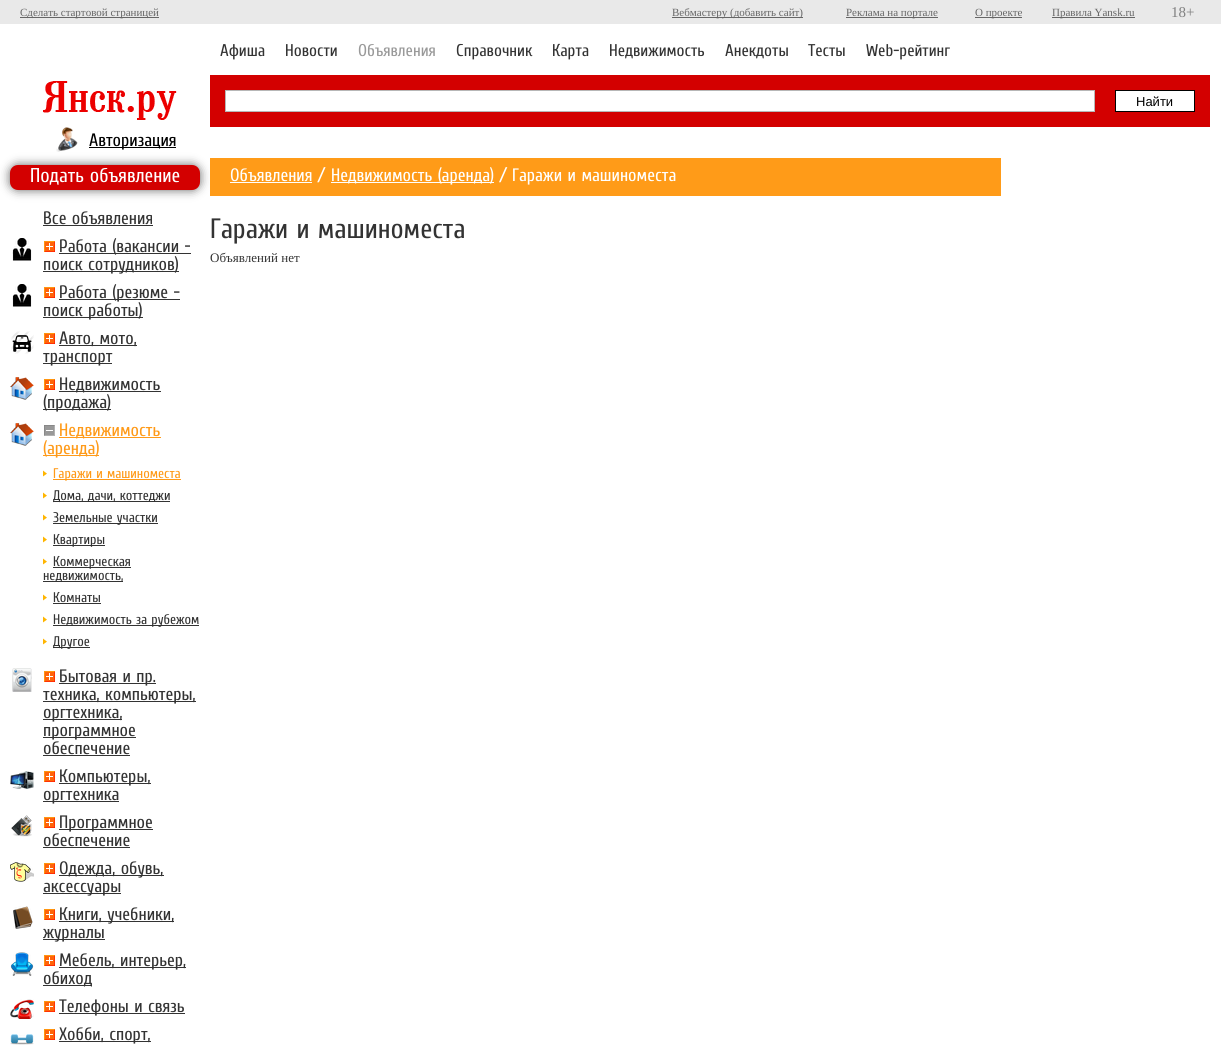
#include <cairo/cairo.h>
#include <math.h>
#include <stddef.h>

typedef struct { double x, y; const char *s; } line_t;
typedef struct { double x, y, w, h; unsigned color; } box_t;
static cairo_t *cr;

static void rgb(unsigned color)
{
	cairo_set_source_rgb(cr, (color >> 16) / 255.0, (color >> 8 & 255) / 255.0, (color & 255) / 255.0);
}

static void rrect(double x, double y, double w, double h, double r)
{
	cairo_new_sub_path(cr);
	cairo_arc(cr, x + w - r, y + h - r, r, 0, M_PI / 2);
	cairo_arc(cr, x + r, y + h - r, r, M_PI / 2, M_PI);
	cairo_arc(cr, x + r, y + r, r, M_PI, 1.5 * M_PI);
	cairo_arc(cr, x + w - r, y + r, r, 1.5 * M_PI, 2 * M_PI);
	cairo_close_path(cr);
}

static void soft_shadow(double x, double y, double w, double h, double r, double blur, double alpha)
{
	cairo_push_group_with_content(cr, CAIRO_CONTENT_ALPHA);
	cairo_set_operator(cr, CAIRO_OPERATOR_SOURCE);
	for (int i = 15; i >= -15 && fmin(w, h) + blur * i / 3 > 0; i -= 2) {
		double e = blur * i / 6;
		cairo_set_source_rgba(cr, 0, 0, 0, alpha * erfc((i - 1) / 8.5) / 2);
		rrect(x - e, y - e, w + 2 * e, h + 2 * e, fmax(0, fmin(r + e + blur * .6, fmin(w, h) / 2 + e)));
		cairo_fill(cr);
	}
	cairo_pattern_t *soft = cairo_pop_group(cr);
	cairo_mask(cr, soft);
	cairo_pattern_destroy(soft);
}

static void image(const char *path, double x, double y, double w, double h)
{
	cairo_surface_t *image = cairo_image_surface_create_from_png(path);
	cairo_save(cr);
	cairo_set_source_surface(cr, image, x, y);
	cairo_rectangle(cr, x, y, w, h);
	cairo_fill(cr);
	cairo_restore(cr);
	cairo_surface_destroy(image);
}

int main(void) {
	cairo_surface_t *surface = cairo_image_surface_create(CAIRO_FORMAT_RGB24, 1221, 1050);
	cr = cairo_create(surface);
	cairo_font_options_t *options = cairo_font_options_create();
	cairo_font_options_set_hint_metrics(options, CAIRO_HINT_METRICS_OFF);
	cairo_font_options_set_hint_style(options, CAIRO_HINT_STYLE_NONE);
	cairo_set_font_options(cr, options);
	cairo_set_miter_limit(cr, 4);
	rgb(0xffffff);
	cairo_paint(cr);
	{
		static const box_t items[] = {
			{0, 0, 1221, 24, 0xe9e9e9},
			{20, 17, 139, 1, 0x666666},
			{672, 17, 131, 1, 0x666666},
			{846, 17, 92, 1, 0x666666},
			{975, 17, 47, 1, 0x666666},
			{1052, 17, 83, 1, 0x666666},
		};
		for (size_t i = 0; i < sizeof items / sizeof *items; i++) {
			rgb(items[i].color);
			cairo_rectangle(cr, items[i].x, items[i].y, items[i].w, items[i].h);
			cairo_fill(cr);
		}
	}
	image("img/1.png", 43, 81, 134, 39);
	rgb(0xd30000);
	cairo_rectangle(cr, 210, 75, 1000, 52);
	cairo_fill(cr);
	rgb(0xffffff);
	cairo_rectangle(cr, 225.5, 90.5, 869, 21);
	cairo_fill_preserve(cr);
	rgb(0xb7b7b7);
	cairo_set_line_width(cr, 1);
	cairo_stroke(cr);
	rgb(0xffffff);
	cairo_rectangle(cr, 1115.5, 90.5, 79, 21);
	cairo_fill_preserve(cr);
	rgb(0x000000);
	cairo_stroke(cr);
	rgb(0x666666);
	soft_shadow(10, 165, 190, 25, 8, 5, 1);
	image("img/2.png", 56, 127, 22, 25);
	rgb(0x000000);
	cairo_rectangle(cr, 89, 147, 87, 1);
	cairo_fill(cr);
	rgb(0xd30000);
	rrect(10, 165, 190, 25, 8);
	cairo_fill(cr);
	rgb(0x333333);
	cairo_rectangle(cr, 43, 225, 110, 1);
	cairo_fill(cr);
	image("img/3.png", 12, 238, 20, 23);
	image("img/4.png", 44, 241, 11, 11);
	cairo_rectangle(cr, 59, 253, 132, 1);
	cairo_fill(cr);
	cairo_rectangle(cr, 43, 271, 136, 1);
	cairo_fill(cr);
	image("img/3.png", 12, 284, 20, 23);
	image("img/4.png", 44, 287, 11, 11);
	cairo_rectangle(cr, 59, 299, 121, 1);
	cairo_fill(cr);
	cairo_rectangle(cr, 43, 317, 100, 1);
	cairo_fill(cr);
	image("img/5.png", 11, 331, 23, 23);
	image("img/4.png", 44, 333, 11, 11);
	cairo_rectangle(cr, 59, 345, 78, 1);
	cairo_fill(cr);
	cairo_rectangle(cr, 43, 363, 69, 1);
	cairo_fill(cr);
	image("img/6.png", 10, 377, 24, 23);
	image("img/4.png", 44, 379, 11, 11);
	cairo_rectangle(cr, 59, 391, 102, 1);
	cairo_fill(cr);
	cairo_rectangle(cr, 43, 409, 68, 1);
	cairo_fill(cr);
	image("img/6.png", 10, 423, 24, 23);
	image("img/7.png", 44, 425, 11, 11);
	rgb(0xff9a18);
	cairo_rectangle(cr, 59, 437, 102, 1);
	cairo_fill(cr);
	cairo_rectangle(cr, 43, 455, 56, 1);
	cairo_fill(cr);
	image("img/8.png", 43, 470, 4, 7);
	cairo_rectangle(cr, 53, 479, 128, 1);
	cairo_fill(cr);
	image("img/8.png", 43, 492, 4, 7);
	rgb(0x333333);
	cairo_rectangle(cr, 53, 501, 117, 1);
	cairo_fill(cr);
	image("img/8.png", 43, 514, 4, 7);
	cairo_rectangle(cr, 53, 523, 105, 1);
	cairo_fill(cr);
	image("img/8.png", 43, 536, 4, 7);
	cairo_rectangle(cr, 53, 545, 52, 1);
	cairo_fill(cr);
	image("img/8.png", 43, 558, 4, 7);
	cairo_rectangle(cr, 53, 567, 78, 1);
	cairo_fill(cr);
	cairo_rectangle(cr, 43, 581, 80, 1);
	cairo_fill(cr);
	image("img/8.png", 43, 594, 4, 7);
	cairo_rectangle(cr, 53, 603, 48, 1);
	cairo_fill(cr);
	image("img/8.png", 43, 616, 4, 7);
	cairo_rectangle(cr, 53, 625, 146, 1);
	cairo_fill(cr);
	image("img/8.png", 43, 638, 4, 7);
	cairo_rectangle(cr, 53, 647, 37, 1);
	cairo_fill(cr);
	image("img/9.png", 12, 668, 20, 24);
	image("img/4.png", 44, 671, 11, 11);
	{
		static const box_t items[] = {
			{59, 683, 97, 1, 0x333333},
			{43, 701, 153, 1, 0x333333},
			{43, 719, 79, 1, 0x333333},
			{43, 737, 93, 1, 0x333333},
			{43, 755, 87, 1, 0x333333},
		};
		for (size_t i = 0; i < sizeof items / sizeof *items; i++) {
			rgb(items[i].color);
			cairo_rectangle(cr, items[i].x, items[i].y, items[i].w, items[i].h);
			cairo_fill(cr);
		}
	}
	image("img/10.png", 10, 771, 24, 18);
	image("img/4.png", 44, 771, 11, 11);
	cairo_rectangle(cr, 59, 783, 92, 1);
	cairo_fill(cr);
	cairo_rectangle(cr, 43, 801, 76, 1);
	cairo_fill(cr);
	image("img/11.png", 11, 815, 21, 22);
	image("img/4.png", 44, 817, 11, 11);
	cairo_rectangle(cr, 59, 829, 94, 1);
	cairo_fill(cr);
	cairo_rectangle(cr, 43, 847, 87, 1);
	cairo_fill(cr);
	image("img/12.png", 10, 862, 24, 20);
	image("img/4.png", 44, 863, 11, 11);
	cairo_rectangle(cr, 59, 875, 105, 1);
	cairo_fill(cr);
	cairo_rectangle(cr, 43, 893, 78, 1);
	cairo_fill(cr);
	image("img/13.png", 13, 906, 20, 23);
	image("img/4.png", 44, 909, 11, 11);
	cairo_rectangle(cr, 59, 921, 115, 1);
	cairo_fill(cr);
	cairo_rectangle(cr, 43, 939, 62, 1);
	cairo_fill(cr);
	image("img/14.png", 10, 952, 24, 24);
	image("img/4.png", 44, 955, 11, 11);
	cairo_rectangle(cr, 59, 967, 127, 1);
	cairo_fill(cr);
	cairo_rectangle(cr, 43, 985, 49, 1);
	cairo_fill(cr);
	image("img/15.png", 10, 999, 24, 20);
	image("img/4.png", 44, 1001, 11, 11);
	cairo_rectangle(cr, 59, 1013, 126, 1);
	cairo_fill(cr);
	image("img/16.png", 10, 1034, 24, 11);
	image("img/4.png", 44, 1029, 11, 11);
	{
		static const box_t items[] = {
			{59, 1041, 92, 1, 0x333333},
			{210, 158, 791, 38, 0xff9b18},
			{230, 182, 82, 1, 0xffffff},
			{331, 182, 163, 1, 0xffffff},
		};
		for (size_t i = 0; i < sizeof items / sizeof *items; i++) {
			rgb(items[i].color);
			cairo_rectangle(cr, items[i].x, items[i].y, items[i].w, items[i].h);
			cairo_fill(cr);
		}
	}
	cairo_select_font_face(cr, "Liberation Serif", CAIRO_FONT_SLANT_NORMAL, CAIRO_FONT_WEIGHT_NORMAL);
	cairo_set_font_size(cr, 11);
	rgb(0x666666);
	{
		static const line_t items[] = {
			{20, 16, "Сделать стартовой страницей"},
			{672, 16, "Вебмастеру (добавить сайт)"},
			{846, 16, "Реклама на портале"},
			{975, 16, "О проекте"},
			{1052, 16, "Правила Yansk.ru"},
		};
		for (size_t i = 0; i < sizeof items / sizeof *items; i++) {
			cairo_move_to(cr, items[i].x, items[i].y);
			cairo_show_text(cr, items[i].s);
		}
	}
	cairo_set_font_size(cr, 15);
	rgb(0x808080);
	cairo_move_to(cr, 1171, 17);
	cairo_show_text(cr, "18+");
	cairo_select_font_face(cr, "Cuprum", CAIRO_FONT_SLANT_NORMAL, CAIRO_FONT_WEIGHT_NORMAL);
	cairo_set_font_size(cr, 17);
	rgb(0x333333);
	cairo_move_to(cr, 220, 56);
	cairo_show_text(cr, "Афиша");
	cairo_move_to(cr, 285, 56);
	cairo_show_text(cr, "Новости");
	rgb(0x999999);
	cairo_move_to(cr, 358, 56);
	cairo_show_text(cr, "Объявления");
	rgb(0x333333);
	{
		static const line_t items[] = {
			{456, 56, "Справочник"},
			{552, 56, "Карта"},
			{609, 56, "Недвижимость"},
			{725, 56, "Анекдоты"},
			{808, 56, "Тесты"},
			{866, 56, "Web-рейтинг"},
		};
		for (size_t i = 0; i < sizeof items / sizeof *items; i++) {
			cairo_move_to(cr, items[i].x, items[i].y);
			cairo_show_text(cr, items[i].s);
		}
	}
	cairo_select_font_face(cr, "Liberation Sans", CAIRO_FONT_SLANT_NORMAL, CAIRO_FONT_WEIGHT_NORMAL);
	cairo_set_font_size(cr, 13);
	rgb(0x000000);
	cairo_move_to(cr, 1136, 106);
	cairo_show_text(cr, "Найти");
	cairo_select_font_face(cr, "Cuprum", CAIRO_FONT_SLANT_NORMAL, CAIRO_FONT_WEIGHT_NORMAL);
	cairo_set_font_size(cr, 18);
	cairo_move_to(cr, 89, 146);
	cairo_show_text(cr, "Авторизация");
	cairo_set_font_size(cr, 20);
	rgb(0xffffff);
	cairo_move_to(cr, 30, 182);
	cairo_show_text(cr, "Подать объявление");
	cairo_set_font_size(cr, 18);
	rgb(0x333333);
	{
		static const line_t items[] = {
			{43, 224, "Все объявления"},
			{59, 252, "Работа (вакансии -"},
			{43, 270, "поиск сотрудников)"},
			{59, 298, "Работа (резюме -"},
			{43, 316, "поиск работы)"},
			{59, 344, "Авто, мото,"},
			{43, 362, "транспорт"},
			{59, 390, "Недвижимость"},
			{43, 408, "(продажа)"},
		};
		for (size_t i = 0; i < sizeof items / sizeof *items; i++) {
			cairo_move_to(cr, items[i].x, items[i].y);
			cairo_show_text(cr, items[i].s);
		}
	}
	rgb(0xff9a18);
	cairo_move_to(cr, 59, 436);
	cairo_show_text(cr, "Недвижимость");
	cairo_move_to(cr, 43, 454);
	cairo_show_text(cr, "(аренда)");
	cairo_set_font_size(cr, 14);
	cairo_move_to(cr, 53, 478);
	cairo_show_text(cr, "Гаражи и машиноместа");
	rgb(0x333333);
	{
		static const line_t items[] = {
			{53, 500, "Дома, дачи, коттеджи"},
			{53, 522, "Земельные участки"},
			{53, 544, "Квартиры"},
			{53, 566, "Коммерческая"},
			{43, 580, "недвижимость,"},
			{53, 602, "Комнаты"},
			{53, 624, "Недвижимость за рубежом"},
			{53, 646, "Другое"},
		};
		for (size_t i = 0; i < sizeof items / sizeof *items; i++) {
			cairo_move_to(cr, items[i].x, items[i].y);
			cairo_show_text(cr, items[i].s);
		}
	}
	cairo_set_font_size(cr, 18);
	{
		static const line_t items[] = {
			{59, 682, "Бытовая и пр."},
			{43, 700, "техника, компьютеры,"},
			{43, 718, "оргтехника,"},
			{43, 736, "программное"},
			{43, 754, "обеспечение"},
			{59, 782, "Компьютеры,"},
			{43, 800, "оргтехника"},
			{59, 828, "Программное"},
			{43, 846, "обеспечение"},
			{59, 874, "Одежда, обувь,"},
			{43, 892, "аксессуары"},
			{59, 920, "Книги, учебники,"},
			{43, 938, "журналы"},
			{59, 966, "Мебель, интерьер,"},
			{43, 984, "обиход"},
			{59, 1012, "Телефоны и связь"},
			{59, 1040, "Хобби, спорт,"},
		};
		for (size_t i = 0; i < sizeof items / sizeof *items; i++) {
			cairo_move_to(cr, items[i].x, items[i].y);
			cairo_show_text(cr, items[i].s);
		}
	}
	rgb(0xffffff);
	cairo_move_to(cr, 230, 181);
	cairo_show_text(cr, "Объявления /");
	cairo_move_to(cr, 331, 181);
	cairo_show_text(cr, "Недвижимость (аренда) / Гаражи и машиноместа");
	cairo_set_font_size(cr, 28);
	rgb(0x333333);
	cairo_move_to(cr, 210, 238);
	cairo_show_text(cr, "Гаражи и машиноместа");
	cairo_select_font_face(cr, "Liberation Serif", CAIRO_FONT_SLANT_NORMAL, CAIRO_FONT_WEIGHT_NORMAL);
	cairo_set_font_size(cr, 13);
	cairo_move_to(cr, 210, 262);
	cairo_show_text(cr, "Объявлений нет");
	cairo_surface_write_to_png(surface, "page.png");
	cairo_font_options_destroy(options);
	cairo_destroy(cr);
	cairo_surface_destroy(surface);
	return 0;
}
